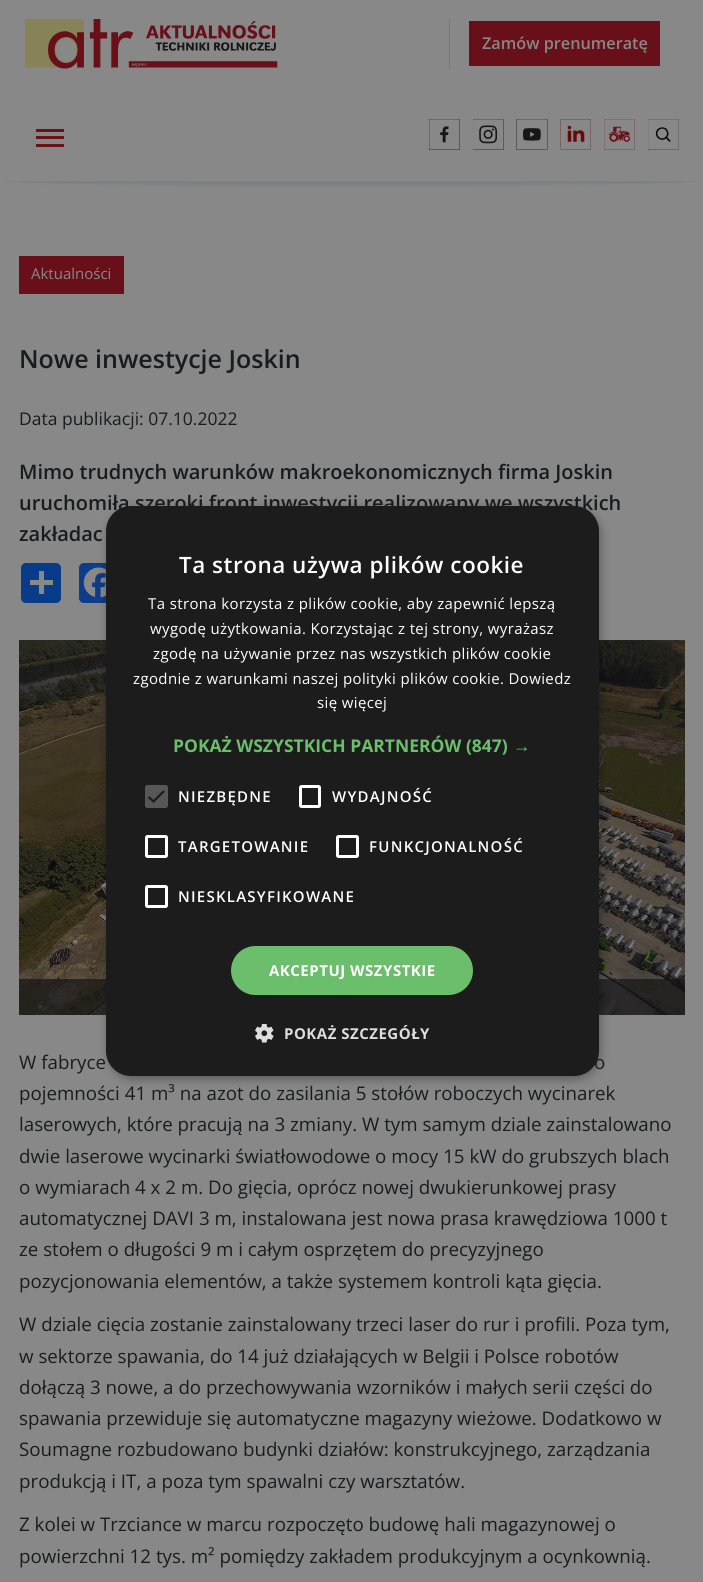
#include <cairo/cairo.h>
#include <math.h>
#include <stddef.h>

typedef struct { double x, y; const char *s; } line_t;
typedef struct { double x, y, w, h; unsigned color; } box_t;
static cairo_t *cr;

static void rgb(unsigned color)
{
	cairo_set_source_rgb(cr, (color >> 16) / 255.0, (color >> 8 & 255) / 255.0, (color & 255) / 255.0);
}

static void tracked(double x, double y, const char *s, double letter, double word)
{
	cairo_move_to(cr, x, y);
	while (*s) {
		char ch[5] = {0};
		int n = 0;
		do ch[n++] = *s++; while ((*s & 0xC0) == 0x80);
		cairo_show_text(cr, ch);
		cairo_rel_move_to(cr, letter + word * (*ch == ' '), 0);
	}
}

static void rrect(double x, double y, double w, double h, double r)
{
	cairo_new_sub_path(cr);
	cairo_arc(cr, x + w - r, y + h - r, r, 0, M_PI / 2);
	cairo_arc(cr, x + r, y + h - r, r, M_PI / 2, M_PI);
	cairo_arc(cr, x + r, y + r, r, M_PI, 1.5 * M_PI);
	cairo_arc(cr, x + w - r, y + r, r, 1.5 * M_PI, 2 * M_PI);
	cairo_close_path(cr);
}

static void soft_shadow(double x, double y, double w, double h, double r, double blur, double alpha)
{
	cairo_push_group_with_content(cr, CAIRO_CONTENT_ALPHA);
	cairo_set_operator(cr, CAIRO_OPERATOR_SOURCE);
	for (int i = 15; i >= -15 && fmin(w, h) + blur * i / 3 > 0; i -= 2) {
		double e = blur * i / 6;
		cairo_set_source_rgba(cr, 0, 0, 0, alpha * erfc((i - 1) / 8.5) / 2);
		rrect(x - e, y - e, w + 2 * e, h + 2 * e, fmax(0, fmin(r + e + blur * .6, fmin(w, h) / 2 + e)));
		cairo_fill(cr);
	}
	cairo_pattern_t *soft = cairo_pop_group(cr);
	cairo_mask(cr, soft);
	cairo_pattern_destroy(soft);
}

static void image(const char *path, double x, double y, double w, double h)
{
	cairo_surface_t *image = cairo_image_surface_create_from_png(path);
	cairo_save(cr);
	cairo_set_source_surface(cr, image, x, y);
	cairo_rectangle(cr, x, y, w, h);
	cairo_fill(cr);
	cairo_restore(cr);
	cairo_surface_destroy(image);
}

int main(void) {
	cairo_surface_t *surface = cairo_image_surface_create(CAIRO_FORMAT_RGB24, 703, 1582);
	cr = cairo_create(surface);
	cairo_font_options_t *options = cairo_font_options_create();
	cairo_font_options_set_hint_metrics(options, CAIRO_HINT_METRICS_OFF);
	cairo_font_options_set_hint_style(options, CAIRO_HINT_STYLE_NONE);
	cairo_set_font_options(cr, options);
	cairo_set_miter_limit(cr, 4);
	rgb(0x888888);
	cairo_paint(cr);
	image("img/1.png", 25, 19, 253, 50);
	{
		static const box_t items[] = {
			{449, 19, 1, 50, 0x767676},
			{469, 21, 191, 45, 0x680f19},
			{36, 129, 28, 3, 0x681417},
			{36, 136, 28, 3, 0x681417},
			{36, 144, 28, 3, 0x681417},
		};
		for (size_t i = 0; i < sizeof items / sizeof *items; i++) {
			rgb(items[i].color);
			cairo_rectangle(cr, items[i].x, items[i].y, items[i].w, items[i].h);
			cairo_fill(cr);
		}
	}
	image("img/2.png", 429, 119, 31, 31);
	image("img/3.png", 473, 119, 31, 31);
	image("img/4.png", 516, 119, 32, 31);
	image("img/5.png", 560, 119, 31, 31);
	image("img/6.png", 604, 119, 31, 31);
	image("img/7.png", 648, 119, 31, 31);
	image("img/8.png", 2, 181, 699, 7);
	rgb(0x680f19);
	cairo_rectangle(cr, 19, 256, 105, 38);
	cairo_fill(cr);
	rgb(0x093c88);
	rrect(21, 563, 40, 40, 5);
	cairo_fill(cr);
	rgb(0x888888);
	cairo_rectangle(cr, 39, 571, 5, 23);
	cairo_fill(cr);
	cairo_rectangle(cr, 30, 580, 23, 5);
	cairo_fill(cr);
	rgb(0x0d3c88);
	rrect(79, 563, 40, 40, 5);
	cairo_fill(cr);
	image("img/9.png", 83, 567, 23, 31);
	image("img/10.png", 19, 640, 666, 375);
	cairo_set_source_rgba(cr, 0.067, 0.067, 0.067, 0.66);
	cairo_rectangle(cr, 19, 979, 666, 36);
	cairo_fill(cr);
	rgb(0x000000);
	soft_shadow(108, 509, 492, 570, 25, 5, 0.35);
	cairo_select_font_face(cr, "Open Sans SemiBold", CAIRO_FONT_SLANT_NORMAL, CAIRO_FONT_WEIGHT_NORMAL);
	cairo_set_font_size(cr, 16.25);
	rgb(0x888888);
	cairo_move_to(cr, 482, 49);
	cairo_show_text(cr, "Zamów prenumeratę");
	cairo_select_font_face(cr, "Open Sans", CAIRO_FONT_SLANT_NORMAL, CAIRO_FONT_WEIGHT_NORMAL);
	cairo_set_font_size(cr, 15);
	cairo_move_to(cr, 31, 279);
	cairo_show_text(cr, "Aktualności");
	cairo_select_font_face(cr, "Open Sans SemiBold", CAIRO_FONT_SLANT_NORMAL, CAIRO_FONT_WEIGHT_NORMAL);
	cairo_set_font_size(cr, 25);
	rgb(0x191b1d);
	cairo_move_to(cr, 19, 368);
	cairo_show_text(cr, "Nowe inwestycje Joskin");
	cairo_select_font_face(cr, "Open Sans", CAIRO_FONT_SLANT_NORMAL, CAIRO_FONT_WEIGHT_NORMAL);
	cairo_set_font_size(cr, 17.5);
	cairo_move_to(cr, 19, 425);
	cairo_show_text(cr, "Data publikacji: 07.10.2022");
	cairo_select_font_face(cr, "Open Sans SemiBold", CAIRO_FONT_SLANT_NORMAL, CAIRO_FONT_WEIGHT_NORMAL);
	cairo_set_font_size(cr, 20);
	{
		static const line_t items[] = {
			{19, 479, "Mimo trudnych warunków makroekonomicznych firma Joskin"},
			{19, 510, "uruchomiła szeroki front inwestycji realizowany we wszystkich"},
			{19, 541, "zakładac"},
		};
		for (size_t i = 0; i < sizeof items / sizeof *items; i++) {
			cairo_move_to(cr, items[i].x, items[i].y);
			cairo_show_text(cr, items[i].s);
		}
	}
	cairo_select_font_face(cr, "Open Sans", CAIRO_FONT_SLANT_NORMAL, CAIRO_FONT_WEIGHT_NORMAL);
	cairo_set_font_size(cr, 18.75);
	{
		static const line_t items[] = {
			{19, 1069, "W fabryce"},
			{594, 1069, "o"},
			{19, 1100, "pojemności 41 m³ na azot do zasilania 5 stołów roboczych wycinarek"},
			{19, 1131, "laserowych, które pracują na 3 zmiany. W tym samym dziale zainstalowano"},
			{19, 1163, "dwie laserowe wycinarki światłowodowe o mocy 15 kW do grubszych blach"},
			{19, 1194, "o wymiarach 4 x 2 m. Do gięcia, oprócz nowej dwukierunkowej prasy"},
			{19, 1225, "automatycznej DAVI 3 m, instalowana jest nowa prasa krawędziowa 1000 t"},
			{19, 1256, "ze stołem o długości 9 m i całym osprzętem do precyzyjnego"},
			{19, 1288, "pozycjonowania elementów, a także systemem kontroli kąta gięcia."},
			{19, 1331, "W dziale cięcia zostanie zainstalowany trzeci laser do rur i profili. Poza tym,"},
			{19, 1363, "w sektorze spawania, do 14 już działających w Belgii i Polsce robotów"},
			{19, 1394, "dołączą 3 nowe, a do przechowywania wzorników i małych serii części do"},
			{19, 1425, "spawania przewiduje się automatyczne magazyny wieżowe. Dodatkowo w"},
			{19, 1456, "Soumagne rozbudowano budynki działów: konstrukcyjnego, zarządzania"},
			{19, 1488, "produkcją i IT, a poza tym spawalni czy warsztatów."},
			{19, 1531, "Z kolei w Trzciance w marcu rozpoczęto budowę hali magazynowej o"},
			{19, 1563, "powierzchni 12 tys. m² pomiędzy zakładem produkcyjnym a ocynkownią."},
		};
		for (size_t i = 0; i < sizeof items / sizeof *items; i++) {
			cairo_move_to(cr, items[i].x, items[i].y);
			cairo_show_text(cr, items[i].s);
		}
	}
	rgb(0x1c1c1c);
	rrect(106, 506, 493, 570, 25);
	cairo_fill(cr);
	cairo_select_font_face(cr, "Open Sans SemiBold", CAIRO_FONT_SLANT_NORMAL, CAIRO_FONT_WEIGHT_NORMAL);
	cairo_set_font_size(cr, 22.5);
	rgb(0xffffff);
	tracked(179, 573, "Ta strona używa plików cookie", 0.5, 0);
	cairo_select_font_face(cr, "Open Sans", CAIRO_FONT_SLANT_NORMAL, CAIRO_FONT_WEIGHT_NORMAL);
	cairo_set_font_size(cr, 15);
	{
		static const line_t items[] = {
			{148, 609, "Ta strona korzysta z plików cookie, aby zapewnić lepszą"},
			{150, 634, "wygodę użytkowania. Korzystając z tej strony, wyrażasz"},
			{153, 659, "zgodę na używanie przez nas wszystkich plików cookie"},
			{133, 684, "zgodnie z warunkami naszej polityki plików cookie. Dowiedz"},
			{317, 708, "się więcej"},
		};
		for (size_t i = 0; i < sizeof items / sizeof *items; i++) {
			tracked(items[i].x, items[i].y, items[i].s, 0.38, 0);
		}
	}
	cairo_select_font_face(cr, "Open Sans", CAIRO_FONT_SLANT_NORMAL, CAIRO_FONT_WEIGHT_BOLD);
	cairo_set_font_size(cr, 17.5);
	rgb(0x6bbe6b);
	cairo_move_to(cr, 173, 752);
	cairo_show_text(cr, "POKAŻ WSZYSTKICH PARTNERÓW (847)");
	cairo_select_font_face(cr, "Liberation Sans", CAIRO_FONT_SLANT_NORMAL, CAIRO_FONT_WEIGHT_BOLD);
	cairo_move_to(cr, 513, 752);
	cairo_show_text(cr, "→");
	rgb(0x575757);
	rrect(145, 785, 23, 23, 2.5);
	cairo_fill(cr);
	cairo_new_path(cr);
	cairo_move_to(cr, 148.5, 797);
	cairo_line_to(cr, 153.5, 801.5);
	cairo_line_to(cr, 164, 791);
	rgb(0x1c1c1c);
	cairo_set_line_width(cr, 2.3);
	cairo_stroke(cr);
	cairo_select_font_face(cr, "Open Sans SemiBold", CAIRO_FONT_SLANT_NORMAL, CAIRO_FONT_WEIGHT_NORMAL);
	cairo_set_font_size(cr, 15);
	rgb(0xffffff);
	tracked(178, 802, "NIEZBĘDNE", 1.25, 0);
	rrect(300.5, 786.5, 19, 20, 1);
	cairo_set_line_width(cr, 3);
	cairo_stroke(cr);
	tracked(332, 802, "WYDAJNOŚĆ", 1.25, 0);
	rrect(146.5, 836.5, 20, 20, 1);
	cairo_stroke(cr);
	tracked(178, 852, "TARGETOWANIE", 1.25, 0);
	rrect(337.5, 836.5, 20, 20, 1);
	cairo_stroke(cr);
	tracked(369, 852, "FUNKCJONALNOŚĆ", 1.25, 0);
	rrect(146.5, 886.5, 20, 20, 1);
	cairo_stroke(cr);
	tracked(178, 902, "NIESKLASYFIKOWANE", 1.25, 0);
	rgb(0x6bbe6b);
	rrect(231, 946, 242, 49, 24.5);
	cairo_fill(cr);
	cairo_select_font_face(cr, "Open Sans", CAIRO_FONT_SLANT_NORMAL, CAIRO_FONT_WEIGHT_BOLD);
	rgb(0xffffff);
	tracked(269, 976, "AKCEPTUJ WSZYSTKIE", 0.5, 0);
	image("img/11.png", 255, 1024, 19, 19);
	rgb(0xdddddd);
	tracked(284, 1039, "POKAŻ SZCZEGÓŁY", 0.5, 0);
	cairo_surface_write_to_png(surface, "page.png");
	cairo_font_options_destroy(options);
	cairo_destroy(cr);
	cairo_surface_destroy(surface);
	return 0;
}
